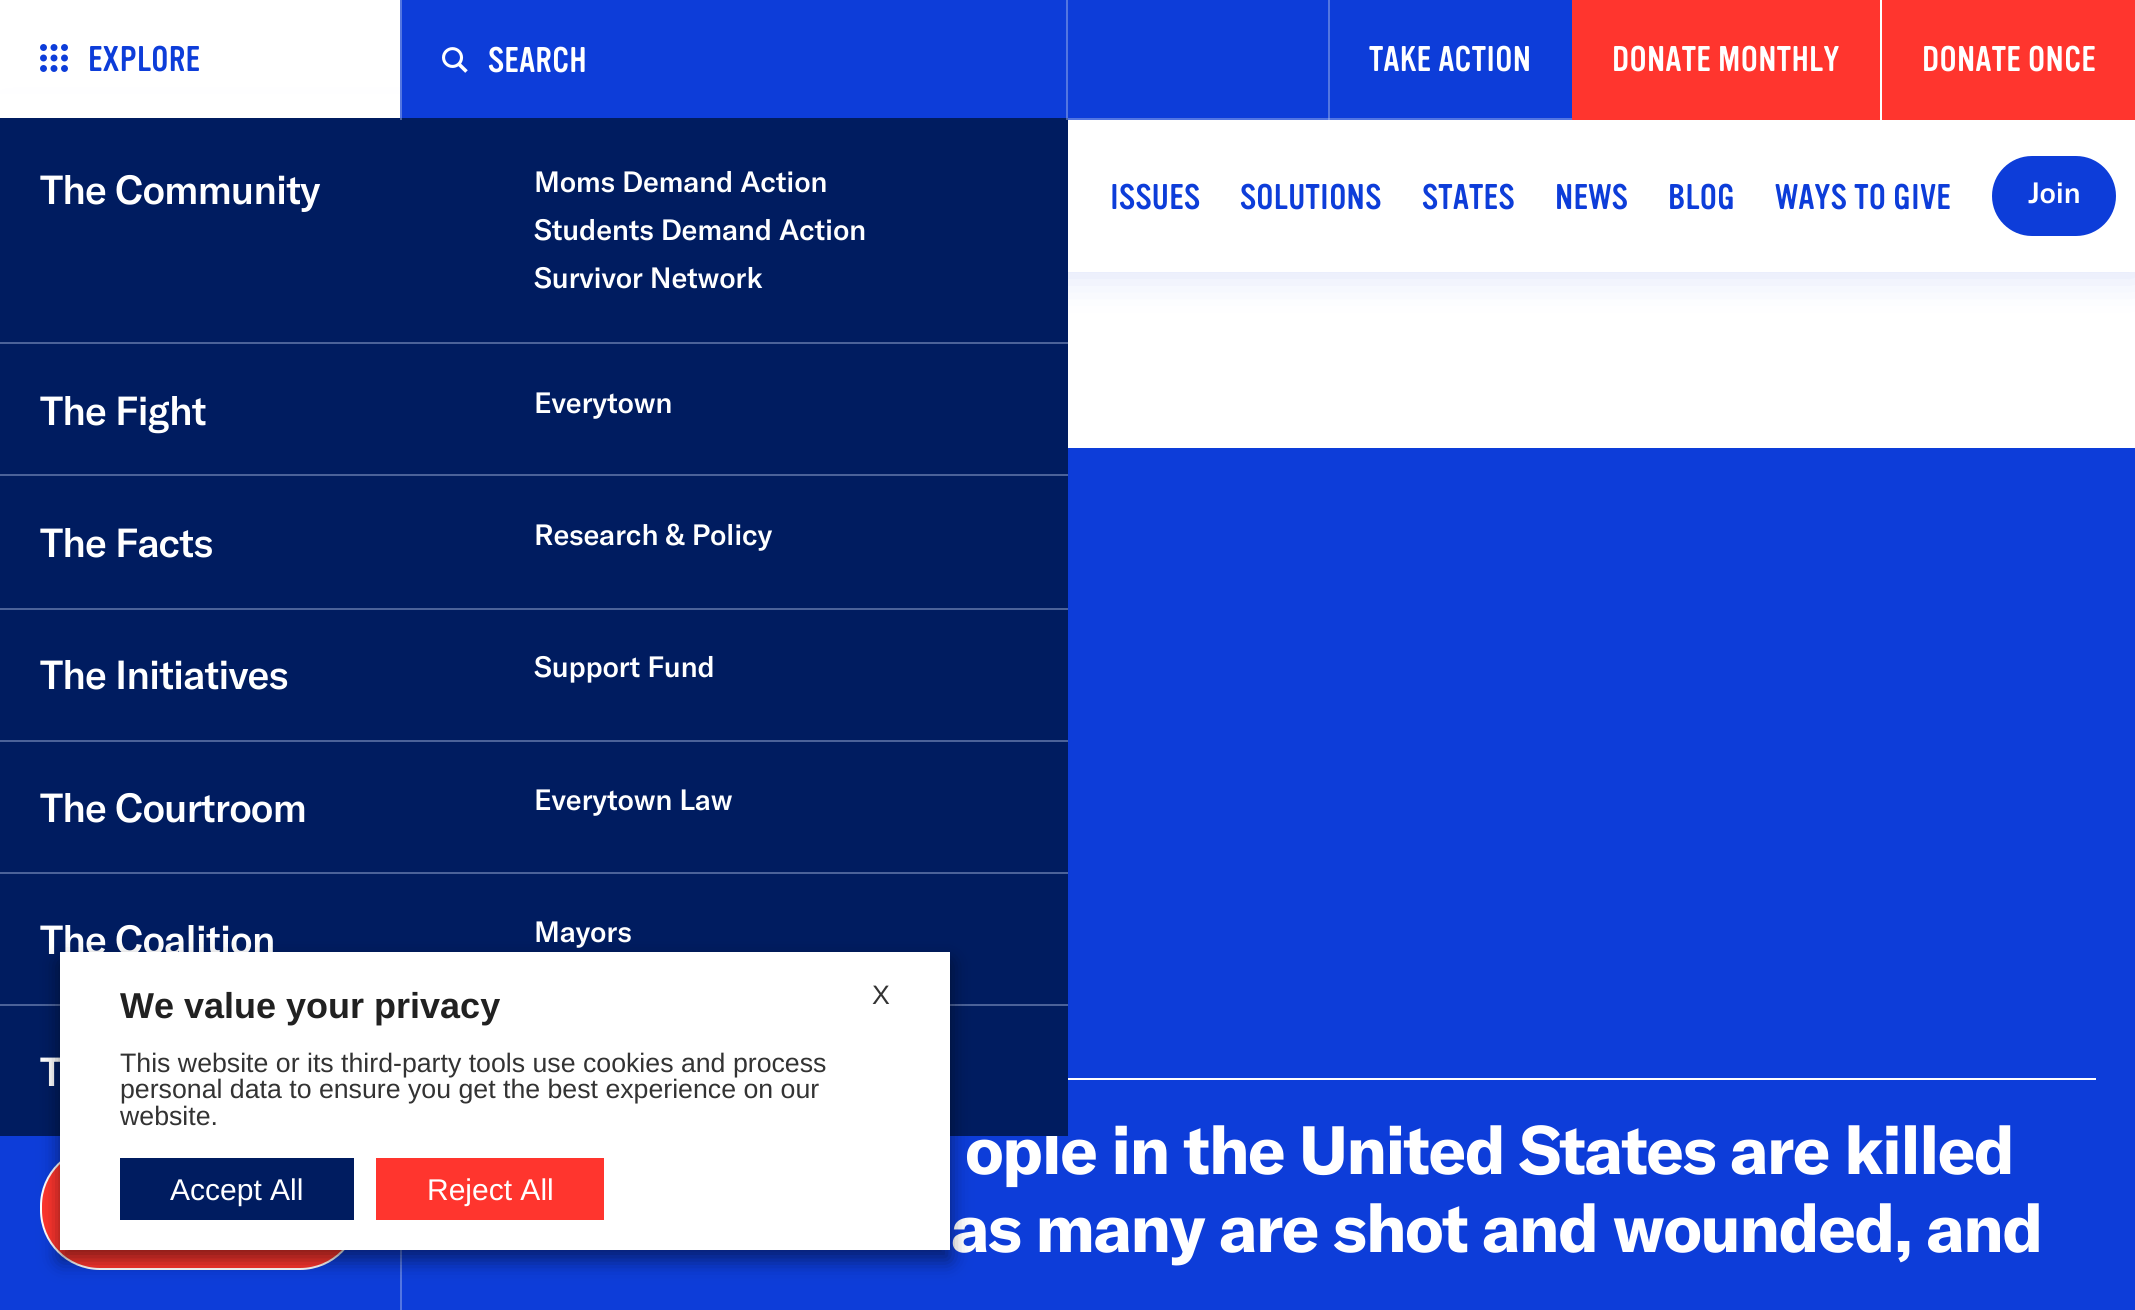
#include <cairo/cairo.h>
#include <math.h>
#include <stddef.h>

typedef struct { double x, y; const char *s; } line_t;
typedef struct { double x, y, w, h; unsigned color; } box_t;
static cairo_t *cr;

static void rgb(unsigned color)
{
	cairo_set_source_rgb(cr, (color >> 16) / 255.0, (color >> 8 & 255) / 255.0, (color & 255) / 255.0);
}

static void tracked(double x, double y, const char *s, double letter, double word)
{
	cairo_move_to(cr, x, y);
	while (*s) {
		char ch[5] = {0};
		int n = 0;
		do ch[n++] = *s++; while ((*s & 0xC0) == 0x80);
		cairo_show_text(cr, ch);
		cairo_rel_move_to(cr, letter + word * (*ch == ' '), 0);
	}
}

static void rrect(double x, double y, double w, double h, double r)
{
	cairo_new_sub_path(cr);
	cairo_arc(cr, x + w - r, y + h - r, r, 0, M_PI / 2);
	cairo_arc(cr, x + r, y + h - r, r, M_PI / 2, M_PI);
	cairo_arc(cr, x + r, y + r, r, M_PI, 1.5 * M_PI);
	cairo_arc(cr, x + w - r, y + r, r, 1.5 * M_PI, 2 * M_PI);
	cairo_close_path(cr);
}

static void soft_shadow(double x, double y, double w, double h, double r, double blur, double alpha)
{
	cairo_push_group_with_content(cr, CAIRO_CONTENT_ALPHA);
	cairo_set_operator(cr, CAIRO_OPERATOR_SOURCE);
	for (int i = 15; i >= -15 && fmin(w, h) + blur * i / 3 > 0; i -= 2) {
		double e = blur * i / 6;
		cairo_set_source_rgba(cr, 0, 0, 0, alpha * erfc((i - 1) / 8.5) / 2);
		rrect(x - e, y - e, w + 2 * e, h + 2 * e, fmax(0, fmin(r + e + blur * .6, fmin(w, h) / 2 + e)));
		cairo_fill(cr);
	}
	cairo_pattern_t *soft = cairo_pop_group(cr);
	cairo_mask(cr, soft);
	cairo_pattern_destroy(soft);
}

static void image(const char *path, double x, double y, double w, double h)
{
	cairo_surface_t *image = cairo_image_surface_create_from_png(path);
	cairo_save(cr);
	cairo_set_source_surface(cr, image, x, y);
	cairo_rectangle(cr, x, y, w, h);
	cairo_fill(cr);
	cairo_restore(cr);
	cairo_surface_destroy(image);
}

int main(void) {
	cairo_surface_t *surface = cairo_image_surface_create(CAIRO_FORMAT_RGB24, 2135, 1310);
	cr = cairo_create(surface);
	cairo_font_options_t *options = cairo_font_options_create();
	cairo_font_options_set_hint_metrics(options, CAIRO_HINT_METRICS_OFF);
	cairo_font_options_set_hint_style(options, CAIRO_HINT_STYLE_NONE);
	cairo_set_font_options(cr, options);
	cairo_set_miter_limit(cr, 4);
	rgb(0xffffff);
	cairo_paint(cr);
	rgb(0x0d3cd9);
	soft_shadow(4, 124, 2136, 152, 0, 20, 0.15);
	{
		static const box_t items[] = {
			{400, 0, 1172, 118, 0x0d3dd9},
			{1068, 118, 504, 2, 0x5376e2},
			{0, 94, 400, 24, 0xffffff},
		};
		for (size_t i = 0; i < sizeof items / sizeof *items; i++) {
			rgb(items[i].color);
			cairo_rectangle(cr, items[i].x, items[i].y, items[i].w, items[i].h);
			cairo_fill(cr);
		}
	}
	image("img/1.png", 40, 44, 28, 28);
	rgb(0x001c60);
	cairo_rectangle(cr, 0, 118, 1068, 224);
	cairo_fill(cr);
	rgb(0x4b6299);
	cairo_rectangle(cr, 0, 342, 1068, 2);
	cairo_fill(cr);
	rgb(0x0d3dd9);
	cairo_rectangle(cr, 0, 448, 2135, 862);
	cairo_fill(cr);
	rgb(0x001c60);
	cairo_rectangle(cr, 0, 344, 1068, 130);
	cairo_fill(cr);
	rgb(0x4b6299);
	cairo_rectangle(cr, 0, 474, 1068, 2);
	cairo_fill(cr);
	rgb(0x001c60);
	cairo_rectangle(cr, 0, 476, 1068, 132);
	cairo_fill(cr);
	rgb(0x4b6299);
	cairo_rectangle(cr, 0, 608, 1068, 2);
	cairo_fill(cr);
	rgb(0x001c60);
	cairo_rectangle(cr, 0, 610, 1068, 130);
	cairo_fill(cr);
	rgb(0x4b6299);
	cairo_rectangle(cr, 0, 740, 1068, 2);
	cairo_fill(cr);
	rgb(0x001c60);
	cairo_rectangle(cr, 0, 742, 1068, 130);
	cairo_fill(cr);
	rgb(0x4b6299);
	cairo_rectangle(cr, 0, 872, 1068, 2);
	cairo_fill(cr);
	rgb(0x001c60);
	cairo_rectangle(cr, 0, 874, 1068, 130);
	cairo_fill(cr);
	rgb(0x4b6299);
	cairo_rectangle(cr, 0, 1004, 1068, 2);
	cairo_fill(cr);
	cairo_set_source_rgba(cr, 0.737, 0.796, 0.937, 0.4);
	cairo_rectangle(cr, 1328, 0, 2, 120);
	cairo_fill(cr);
	rgb(0xff352e);
	cairo_rectangle(cr, 1572, 0, 308, 120);
	cairo_fill(cr);
	rgb(0xffffff);
	cairo_rectangle(cr, 1880, 94, 2, 26);
	cairo_fill(cr);
	rgb(0xff352e);
	cairo_rectangle(cr, 1882, 0, 253, 120);
	cairo_fill(cr);
	cairo_set_source_rgba(cr, 0.737, 0.796, 0.937, 0.4);
	cairo_rectangle(cr, 1066, 0, 2, 120);
	cairo_fill(cr);
	cairo_rectangle(cr, 400, 0, 2, 120);
	cairo_fill(cr);
	image("img/2.png", 442, 47, 26, 26);
	rgb(0xffffff);
	cairo_rectangle(cr, 1068, 120, 1067, 152);
	cairo_fill(cr);
	rgb(0x0d3dd9);
	rrect(1992, 156, 124, 80, 40);
	cairo_fill(cr);
	rgb(0xff352e);
	rrect(41, 1147, 318, 122, 59);
	cairo_fill_preserve(cr);
	rgb(0xffffff);
	cairo_stroke(cr);
	rgb(0x5376e2);
	cairo_rectangle(cr, 400, 1250, 2, 60);
	cairo_fill(cr);
	rgb(0xffffff);
	cairo_rectangle(cr, 1068, 1078, 1028, 2);
	cairo_fill(cr);
	cairo_select_font_face(cr, "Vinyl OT", CAIRO_FONT_SLANT_NORMAL, CAIRO_FONT_WEIGHT_NORMAL);
	cairo_set_font_size(cr, 35);
	rgb(0x0d3dd9);
	tracked(88, 71, "EXPLORE", 0.3, 0);
	cairo_select_font_face(cr, "GT America Medium", CAIRO_FONT_SLANT_NORMAL, CAIRO_FONT_WEIGHT_NORMAL);
	cairo_set_font_size(cr, 40);
	rgb(0xffffff);
	tracked(40, 204, "The Community", -1, 0);
	cairo_set_font_size(cr, 29);
	{
		static const line_t items[] = {
			{534, 192, "Moms Demand Action"},
			{534, 240, "Students Demand Action"},
			{534, 288, "Survivor Network"},
		};
		for (size_t i = 0; i < sizeof items / sizeof *items; i++) {
			tracked(items[i].x, items[i].y, items[i].s, -0.25, 0);
		}
	}
	cairo_set_font_size(cr, 40);
	tracked(40, 425, "The Fight", -1, 0);
	cairo_set_font_size(cr, 29);
	tracked(534, 413, "Everytown", -0.25, 0);
	cairo_set_font_size(cr, 40);
	tracked(40, 557, "The Facts", -1, 0);
	cairo_set_font_size(cr, 29);
	tracked(534, 545, "Research & Policy", -0.25, 0);
	cairo_set_font_size(cr, 40);
	tracked(40, 689, "The Initiatives", -1, 0);
	cairo_set_font_size(cr, 29);
	tracked(534, 677, "Support Fund", -0.25, 0);
	cairo_set_font_size(cr, 40);
	tracked(40, 822, "The Courtroom", -1, 0);
	cairo_set_font_size(cr, 29);
	tracked(534, 810, "Everytown Law", -0.25, 0);
	cairo_set_font_size(cr, 40);
	tracked(40, 954, "The Coalition", -1, 0);
	cairo_set_font_size(cr, 29);
	tracked(534, 942, "Mayors", -0.25, 0);
	cairo_select_font_face(cr, "Vinyl OT", CAIRO_FONT_SLANT_NORMAL, CAIRO_FONT_WEIGHT_NORMAL);
	cairo_set_font_size(cr, 35);
	{
		static const line_t items[] = {
			{1369, 71, "TAKE ACTION"},
			{1612, 71, "DONATE MONTHLY"},
			{1922, 71, "DONATE ONCE"},
			{488, 72, "SEARCH"},
		};
		for (size_t i = 0; i < sizeof items / sizeof *items; i++) {
			tracked(items[i].x, items[i].y, items[i].s, 0.3, 0);
		}
	}
	rgb(0x0d3dd9);
	{
		static const line_t items[] = {
			{1110, 209, "ISSUES"},
			{1240, 209, "SOLUTIONS"},
			{1422, 209, "STATES"},
			{1555, 209, "NEWS"},
			{1668, 209, "BLOG"},
			{1775, 209, "WAYS TO GIVE"},
		};
		for (size_t i = 0; i < sizeof items / sizeof *items; i++) {
			tracked(items[i].x, items[i].y, items[i].s, 0.3, 0);
		}
	}
	cairo_select_font_face(cr, "GT America Medium", CAIRO_FONT_SLANT_NORMAL, CAIRO_FONT_WEIGHT_NORMAL);
	cairo_set_font_size(cr, 29);
	rgb(0xffffff);
	tracked(2028, 203, "Join", -0.25, 0);
	cairo_select_font_face(cr, "GT America", CAIRO_FONT_SLANT_NORMAL, CAIRO_FONT_WEIGHT_BOLD);
	cairo_set_font_size(cr, 67.25);
	tracked(965, 1174, "ople in the United States are killed", -1.7, 0);
	rgb(0x001c60);
	cairo_rectangle(cr, 0, 1006, 1068, 130);
	cairo_fill(cr);
	cairo_select_font_face(cr, "GT America Medium", CAIRO_FONT_SLANT_NORMAL, CAIRO_FONT_WEIGHT_NORMAL);
	cairo_set_font_size(cr, 40);
	rgb(0xffffff);
	tracked(40, 1086, "T", -1, 0);
	cairo_select_font_face(cr, "GT America", CAIRO_FONT_SLANT_NORMAL, CAIRO_FONT_WEIGHT_BOLD);
	cairo_set_font_size(cr, 67.25);
	tracked(951, 1252, "as many are shot and wounded, and", -1.7, 0);
	rgb(0x000000);
	soft_shadow(60, 962, 890, 298, 0, 10, 0.5);
	rgb(0xffffff);
	cairo_rectangle(cr, 60, 952, 890, 298);
	cairo_fill(cr);
	cairo_select_font_face(cr, "Liberation Sans", CAIRO_FONT_SLANT_NORMAL, CAIRO_FONT_WEIGHT_BOLD);
	cairo_set_font_size(cr, 36);
	rgb(0x212121);
	cairo_move_to(cr, 120, 1018);
	cairo_show_text(cr, "We value your privacy");
	cairo_select_font_face(cr, "Liberation Sans", CAIRO_FONT_SLANT_NORMAL, CAIRO_FONT_WEIGHT_NORMAL);
	cairo_set_font_size(cr, 26.7);
	rgb(0x333333);
	{
		static const line_t items[] = {
			{872, 1004, "X"},
			{120, 1072, "This website or its third-party tools use cookies and process"},
			{120, 1098, "personal data to ensure you get the best experience on our"},
			{120, 1125, "website."},
		};
		for (size_t i = 0; i < sizeof items / sizeof *items; i++) {
			cairo_move_to(cr, items[i].x, items[i].y);
			cairo_show_text(cr, items[i].s);
		}
	}
	rgb(0x001c60);
	cairo_rectangle(cr, 120, 1158, 234, 62);
	cairo_fill(cr);
	cairo_set_font_size(cr, 30);
	rgb(0xffffff);
	cairo_move_to(cr, 170, 1200);
	cairo_show_text(cr, "Accept All");
	rgb(0xff352e);
	cairo_rectangle(cr, 376, 1158, 228, 62);
	cairo_fill(cr);
	rgb(0xffffff);
	cairo_move_to(cr, 427, 1200);
	cairo_show_text(cr, "Reject All");
	cairo_surface_write_to_png(surface, "page.png");
	cairo_font_options_destroy(options);
	cairo_destroy(cr);
	cairo_surface_destroy(surface);
	return 0;
}
